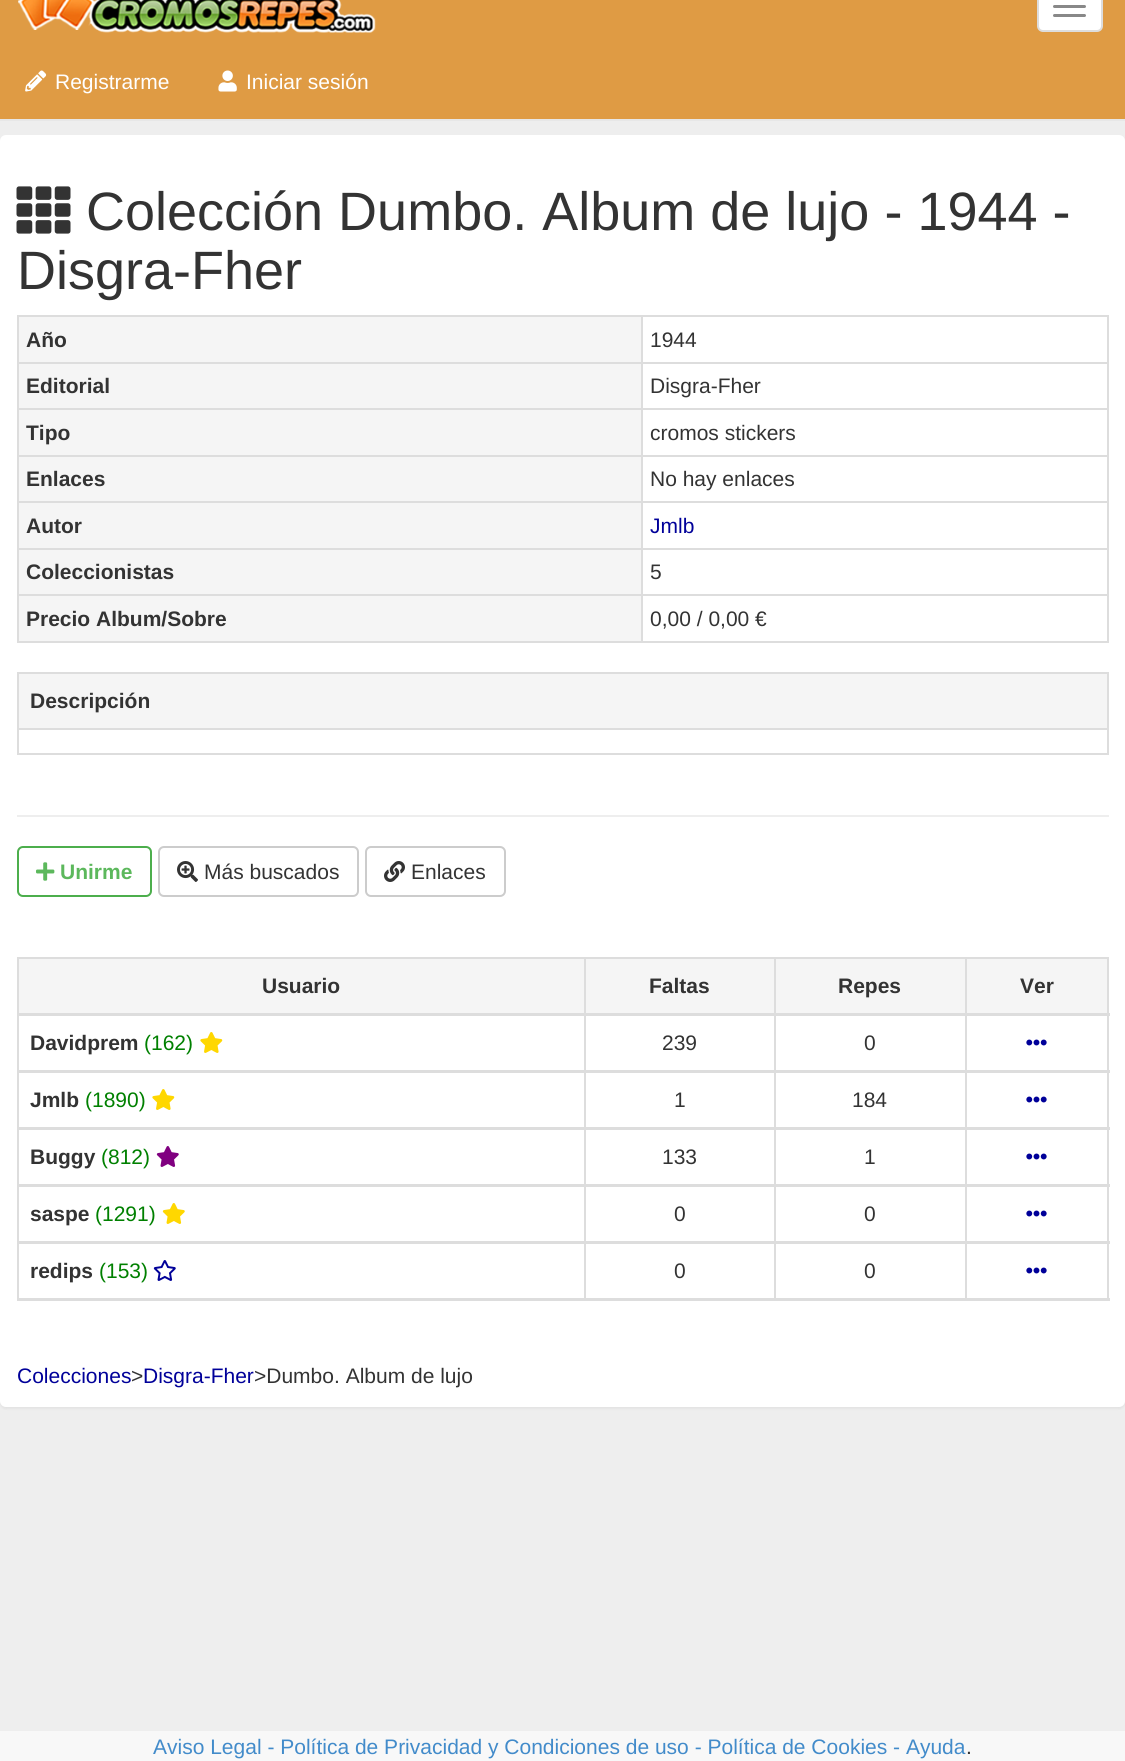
#include <cairo/cairo.h>
#include <math.h>
#include <stddef.h>

typedef struct { double x, y; const char *s; } line_t;
typedef struct { double x, y, w, h; unsigned color; } box_t;
static cairo_t *cr;

static void rgb(unsigned color)
{
	cairo_set_source_rgb(cr, (color >> 16) / 255.0, (color >> 8 & 255) / 255.0, (color & 255) / 255.0);
}

static void rrect(double x, double y, double w, double h, double r)
{
	cairo_new_sub_path(cr);
	cairo_arc(cr, x + w - r, y + h - r, r, 0, M_PI / 2);
	cairo_arc(cr, x + r, y + h - r, r, M_PI / 2, M_PI);
	cairo_arc(cr, x + r, y + r, r, M_PI, 1.5 * M_PI);
	cairo_arc(cr, x + w - r, y + r, r, 1.5 * M_PI, 2 * M_PI);
	cairo_close_path(cr);
}

static void soft_shadow(double x, double y, double w, double h, double r, double blur, double alpha)
{
	cairo_push_group_with_content(cr, CAIRO_CONTENT_ALPHA);
	cairo_set_operator(cr, CAIRO_OPERATOR_SOURCE);
	for (int i = 15; i >= -15 && fmin(w, h) + blur * i / 3 > 0; i -= 2) {
		double e = blur * i / 6;
		cairo_set_source_rgba(cr, 0, 0, 0, alpha * erfc((i - 1) / 8.5) / 2);
		rrect(x - e, y - e, w + 2 * e, h + 2 * e, fmax(0, fmin(r + e + blur * .6, fmin(w, h) / 2 + e)));
		cairo_fill(cr);
	}
	cairo_pattern_t *soft = cairo_pop_group(cr);
	cairo_mask(cr, soft);
	cairo_pattern_destroy(soft);
}

static void image(const char *path, double x, double y, double w, double h)
{
	cairo_surface_t *image = cairo_image_surface_create_from_png(path);
	cairo_save(cr);
	cairo_set_source_surface(cr, image, x, y);
	cairo_rectangle(cr, x, y, w, h);
	cairo_fill(cr);
	cairo_restore(cr);
	cairo_surface_destroy(image);
}

int main(void) {
	cairo_surface_t *surface = cairo_image_surface_create(CAIRO_FORMAT_RGB24, 1125, 1761);
	cr = cairo_create(surface);
	cairo_font_options_t *options = cairo_font_options_create();
	cairo_font_options_set_hint_metrics(options, CAIRO_HINT_METRICS_OFF);
	cairo_font_options_set_hint_style(options, CAIRO_HINT_STYLE_NONE);
	cairo_set_font_options(cr, options);
	cairo_set_miter_limit(cr, 4);
	rgb(0xf8f8f8);
	cairo_paint(cr);
	rgb(0xdf9b44);
	cairo_rectangle(cr, 0, 0, 1125, 119);
	cairo_fill(cr);
	rgb(0xe7e7e7);
	cairo_rectangle(cr, 0, 119, 1125, 2);
	cairo_fill(cr);
	image("img/1.png", 18, 0, 358, 33);
	rgb(0xffffff);
	rrect(1038, -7, 64, 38, 5);
	cairo_fill_preserve(cr);
	rgb(0xdddddd);
	cairo_stroke(cr);
	rgb(0x888888);
	rrect(1053, 5, 33, 3, 1.5);
	cairo_fill(cr);
	rrect(1053, 14, 33, 3, 1.5);
	cairo_fill(cr);
	image("img/2.png", 25, 70, 22, 22);
	image("img/3.png", 218, 70, 19, 22);
	rgb(0xeeeeee);
	cairo_rectangle(cr, 0, 121, 1125, 1610);
	cairo_fill(cr);
	rgb(0x000000);
	soft_shadow(0, 137, 1125, 1272, 6, 1, 0.05);
	rgb(0xffffff);
	rrect(0, 135, 1125, 1272, 6);
	cairo_fill(cr);
	image("img/4.png", 16, 186, 55, 48);
	{
		static const box_t items[] = {
			{17, 315, 1092, 2, 0xdddddd},
			{1107, 315, 2, 327, 0xdddddd},
			{17, 641, 1092, 2, 0xdddddd},
			{17, 315, 2, 327, 0xdddddd},
			{19, 317, 622, 45, 0xf5f5f5},
			{641, 362, 468, 2, 0xdddddd},
			{641, 408, 468, 2, 0xdddddd},
			{641, 455, 468, 2, 0xdddddd},
			{641, 501, 468, 2, 0xdddddd},
			{641, 548, 468, 2, 0xdddddd},
			{641, 594, 468, 2, 0xdddddd},
			{641, 594, 2, 48, 0xdddddd},
			{17, 594, 625, 2, 0xdddddd},
			{641, 548, 2, 48, 0xdddddd},
			{17, 548, 625, 2, 0xdddddd},
			{641, 501, 2, 48, 0xdddddd},
			{17, 501, 625, 2, 0xdddddd},
			{641, 455, 2, 48, 0xdddddd},
			{17, 455, 625, 2, 0xdddddd},
			{641, 408, 2, 48, 0xdddddd},
			{17, 408, 625, 2, 0xdddddd},
			{641, 362, 2, 48, 0xdddddd},
			{17, 362, 625, 2, 0xdddddd},
			{641, 315, 2, 48, 0xdddddd},
			{19, 364, 622, 44, 0xf5f5f5},
			{19, 410, 622, 45, 0xf5f5f5},
			{19, 457, 622, 44, 0xf5f5f5},
			{19, 503, 622, 45, 0xf5f5f5},
			{19, 550, 622, 44, 0xf5f5f5},
			{19, 596, 622, 45, 0xf5f5f5},
			{17, 672, 1092, 2, 0xdddddd},
			{1107, 672, 2, 83, 0xdddddd},
			{17, 753, 1092, 2, 0xdddddd},
			{17, 672, 2, 83, 0xdddddd},
			{19, 674, 1088, 54, 0xf5f5f5},
			{17, 728, 1092, 2, 0xdddddd},
			{17, 815, 1092, 2, 0xeeeeee},
		};
		for (size_t i = 0; i < sizeof items / sizeof *items; i++) {
			rgb(items[i].color);
			cairo_rectangle(cr, items[i].x, items[i].y, items[i].w, items[i].h);
			cairo_fill(cr);
		}
	}
	rrect(18, 847, 133, 49, 5);
	rgb(0x4cae4c);
	cairo_stroke(cr);
	image("img/5.png", 36, 862, 19, 19);
	rrect(159, 847, 199, 49, 5);
	rgb(0xcccccc);
	cairo_stroke(cr);
	image("img/6.png", 177, 861, 21, 21);
	rrect(366, 847, 139, 49, 5);
	cairo_stroke(cr);
	image("img/7.png", 384, 861, 21, 21);
	{
		static const box_t items[] = {
			{17, 957, 1092, 2, 0xdddddd},
			{1107, 957, 2, 344, 0xdddddd},
			{17, 957, 2, 344, 0xdddddd},
			{19, 959, 565, 54, 0xf5f5f5},
			{586, 959, 188, 54, 0xf5f5f5},
			{776, 959, 189, 54, 0xf5f5f5},
			{967, 959, 140, 54, 0xf5f5f5},
			{965, 957, 2, 344, 0xdddddd},
			{584, 957, 2, 344, 0xdddddd},
			{774, 957, 2, 344, 0xdddddd},
			{17, 1013, 1093, 3, 0xdddddd},
		};
		for (size_t i = 0; i < sizeof items / sizeof *items; i++) {
			rgb(items[i].color);
			cairo_rectangle(cr, items[i].x, items[i].y, items[i].w, items[i].h);
			cairo_fill(cr);
		}
	}
	image("img/8.png", 200, 1032, 23, 21);
	cairo_rectangle(cr, 17, 1070, 1093, 3);
	cairo_fill(cr);
	image("img/9.png", 1026, 1039, 21, 7);
	image("img/8.png", 152, 1089, 23, 21);
	cairo_rectangle(cr, 17, 1127, 1093, 3);
	cairo_fill(cr);
	image("img/9.png", 1026, 1096, 21, 7);
	image("img/10.png", 156, 1146, 23, 21);
	cairo_rectangle(cr, 17, 1184, 1093, 3);
	cairo_fill(cr);
	image("img/9.png", 1026, 1153, 21, 7);
	image("img/11.png", 162, 1203, 23, 21);
	cairo_rectangle(cr, 17, 1241, 1093, 3);
	cairo_fill(cr);
	image("img/9.png", 1026, 1210, 21, 7);
	cairo_rectangle(cr, 17, 1298, 1093, 3);
	cairo_fill(cr);
	image("img/9.png", 1026, 1267, 21, 7);
	image("img/12.png", 153, 1260, 23, 21);
	cairo_select_font_face(cr, "Liberation Sans", CAIRO_FONT_SLANT_NORMAL, CAIRO_FONT_WEIGHT_NORMAL);
	cairo_set_font_size(cr, 21);
	rgb(0xffffff);
	cairo_move_to(cr, 55, 89);
	cairo_show_text(cr, "Registrarme");
	cairo_move_to(cr, 246, 89);
	cairo_show_text(cr, "Iniciar sesión");
	cairo_set_font_size(cr, 54);
	rgb(0x333333);
	cairo_move_to(cr, 86, 230);
	cairo_show_text(cr, "Colección Dumbo. Album de lujo - 1944 -");
	cairo_move_to(cr, 17, 289);
	cairo_show_text(cr, "Disgra-Fher");
	cairo_select_font_face(cr, "Liberation Sans", CAIRO_FONT_SLANT_NORMAL, CAIRO_FONT_WEIGHT_BOLD);
	cairo_set_font_size(cr, 21);
	cairo_move_to(cr, 26, 347);
	cairo_show_text(cr, "Año");
	cairo_select_font_face(cr, "Liberation Sans", CAIRO_FONT_SLANT_NORMAL, CAIRO_FONT_WEIGHT_NORMAL);
	cairo_move_to(cr, 650, 347);
	cairo_show_text(cr, "1944");
	cairo_select_font_face(cr, "Liberation Sans", CAIRO_FONT_SLANT_NORMAL, CAIRO_FONT_WEIGHT_BOLD);
	cairo_move_to(cr, 26, 393);
	cairo_show_text(cr, "Editorial");
	cairo_select_font_face(cr, "Liberation Sans", CAIRO_FONT_SLANT_NORMAL, CAIRO_FONT_WEIGHT_NORMAL);
	cairo_move_to(cr, 650, 393);
	cairo_show_text(cr, "Disgra-Fher");
	cairo_select_font_face(cr, "Liberation Sans", CAIRO_FONT_SLANT_NORMAL, CAIRO_FONT_WEIGHT_BOLD);
	cairo_move_to(cr, 26, 440);
	cairo_show_text(cr, "Tipo");
	cairo_select_font_face(cr, "Liberation Sans", CAIRO_FONT_SLANT_NORMAL, CAIRO_FONT_WEIGHT_NORMAL);
	cairo_move_to(cr, 650, 440);
	cairo_show_text(cr, "cromos stickers");
	cairo_select_font_face(cr, "Liberation Sans", CAIRO_FONT_SLANT_NORMAL, CAIRO_FONT_WEIGHT_BOLD);
	cairo_move_to(cr, 26, 486);
	cairo_show_text(cr, "Enlaces");
	cairo_select_font_face(cr, "Liberation Sans", CAIRO_FONT_SLANT_NORMAL, CAIRO_FONT_WEIGHT_NORMAL);
	cairo_move_to(cr, 650, 486);
	cairo_show_text(cr, "No hay enlaces");
	cairo_select_font_face(cr, "Liberation Sans", CAIRO_FONT_SLANT_NORMAL, CAIRO_FONT_WEIGHT_BOLD);
	cairo_move_to(cr, 26, 533);
	cairo_show_text(cr, "Autor");
	cairo_select_font_face(cr, "Liberation Sans", CAIRO_FONT_SLANT_NORMAL, CAIRO_FONT_WEIGHT_NORMAL);
	rgb(0x000099);
	cairo_move_to(cr, 650, 533);
	cairo_show_text(cr, "Jmlb");
	cairo_select_font_face(cr, "Liberation Sans", CAIRO_FONT_SLANT_NORMAL, CAIRO_FONT_WEIGHT_BOLD);
	rgb(0x333333);
	cairo_move_to(cr, 26, 579);
	cairo_show_text(cr, "Coleccionistas");
	cairo_select_font_face(cr, "Liberation Sans", CAIRO_FONT_SLANT_NORMAL, CAIRO_FONT_WEIGHT_NORMAL);
	cairo_move_to(cr, 650, 579);
	cairo_show_text(cr, "5");
	cairo_select_font_face(cr, "Liberation Sans", CAIRO_FONT_SLANT_NORMAL, CAIRO_FONT_WEIGHT_BOLD);
	cairo_move_to(cr, 26, 626);
	cairo_show_text(cr, "Precio Album/Sobre");
	cairo_select_font_face(cr, "Liberation Sans", CAIRO_FONT_SLANT_NORMAL, CAIRO_FONT_WEIGHT_NORMAL);
	cairo_move_to(cr, 650, 626);
	cairo_show_text(cr, "0,00 / 0,00 €");
	cairo_select_font_face(cr, "Liberation Sans", CAIRO_FONT_SLANT_NORMAL, CAIRO_FONT_WEIGHT_BOLD);
	cairo_move_to(cr, 30, 708);
	cairo_show_text(cr, "Descripción");
	rgb(0x5cb85c);
	cairo_move_to(cr, 60, 879);
	cairo_show_text(cr, "Unirme");
	cairo_select_font_face(cr, "Liberation Sans", CAIRO_FONT_SLANT_NORMAL, CAIRO_FONT_WEIGHT_NORMAL);
	rgb(0x333333);
	cairo_move_to(cr, 204, 879);
	cairo_show_text(cr, "Más buscados");
	cairo_move_to(cr, 411, 879);
	cairo_show_text(cr, "Enlaces");
	cairo_select_font_face(cr, "Liberation Sans", CAIRO_FONT_SLANT_NORMAL, CAIRO_FONT_WEIGHT_BOLD);
	{
		static const line_t items[] = {
			{262, 993, "Usuario"},
			{649, 993, "Faltas"},
			{838, 993, "Repes"},
			{1020, 993, "Ver"},
			{30, 1050, "Davidprem"},
		};
		for (size_t i = 0; i < sizeof items / sizeof *items; i++) {
			cairo_move_to(cr, items[i].x, items[i].y);
			cairo_show_text(cr, items[i].s);
		}
	}
	cairo_select_font_face(cr, "Liberation Sans", CAIRO_FONT_SLANT_NORMAL, CAIRO_FONT_WEIGHT_NORMAL);
	rgb(0x008000);
	cairo_move_to(cr, 144, 1050);
	cairo_show_text(cr, "(162)");
	rgb(0x333333);
	cairo_move_to(cr, 662, 1050);
	cairo_show_text(cr, "239");
	cairo_move_to(cr, 864, 1050);
	cairo_show_text(cr, "0");
	cairo_select_font_face(cr, "Liberation Sans", CAIRO_FONT_SLANT_NORMAL, CAIRO_FONT_WEIGHT_BOLD);
	cairo_move_to(cr, 30, 1107);
	cairo_show_text(cr, "Jmlb");
	cairo_select_font_face(cr, "Liberation Sans", CAIRO_FONT_SLANT_NORMAL, CAIRO_FONT_WEIGHT_NORMAL);
	rgb(0x008000);
	cairo_move_to(cr, 85, 1107);
	cairo_show_text(cr, "(1890)");
	rgb(0x333333);
	cairo_move_to(cr, 674, 1107);
	cairo_show_text(cr, "1");
	cairo_move_to(cr, 852, 1107);
	cairo_show_text(cr, "184");
	cairo_select_font_face(cr, "Liberation Sans", CAIRO_FONT_SLANT_NORMAL, CAIRO_FONT_WEIGHT_BOLD);
	cairo_move_to(cr, 30, 1164);
	cairo_show_text(cr, "Buggy");
	cairo_select_font_face(cr, "Liberation Sans", CAIRO_FONT_SLANT_NORMAL, CAIRO_FONT_WEIGHT_NORMAL);
	rgb(0x008000);
	cairo_move_to(cr, 101, 1164);
	cairo_show_text(cr, "(812)");
	rgb(0x333333);
	cairo_move_to(cr, 662, 1164);
	cairo_show_text(cr, "133");
	cairo_move_to(cr, 864, 1164);
	cairo_show_text(cr, "1");
	cairo_select_font_face(cr, "Liberation Sans", CAIRO_FONT_SLANT_NORMAL, CAIRO_FONT_WEIGHT_BOLD);
	cairo_move_to(cr, 30, 1221);
	cairo_show_text(cr, "saspe");
	cairo_select_font_face(cr, "Liberation Sans", CAIRO_FONT_SLANT_NORMAL, CAIRO_FONT_WEIGHT_NORMAL);
	rgb(0x008000);
	cairo_move_to(cr, 95, 1221);
	cairo_show_text(cr, "(1291)");
	rgb(0x333333);
	cairo_move_to(cr, 674, 1221);
	cairo_show_text(cr, "0");
	cairo_move_to(cr, 864, 1221);
	cairo_show_text(cr, "0");
	cairo_select_font_face(cr, "Liberation Sans", CAIRO_FONT_SLANT_NORMAL, CAIRO_FONT_WEIGHT_BOLD);
	cairo_move_to(cr, 30, 1278);
	cairo_show_text(cr, "redips");
	cairo_select_font_face(cr, "Liberation Sans", CAIRO_FONT_SLANT_NORMAL, CAIRO_FONT_WEIGHT_NORMAL);
	rgb(0x008000);
	cairo_move_to(cr, 99, 1278);
	cairo_show_text(cr, "(153)");
	rgb(0x333333);
	cairo_move_to(cr, 674, 1278);
	cairo_show_text(cr, "0");
	cairo_move_to(cr, 864, 1278);
	cairo_show_text(cr, "0");
	rgb(0x000099);
	cairo_move_to(cr, 17, 1383);
	cairo_show_text(cr, "Colecciones");
	rgb(0x333333);
	cairo_move_to(cr, 131, 1383);
	cairo_show_text(cr, ">");
	rgb(0x000099);
	cairo_move_to(cr, 143, 1383);
	cairo_show_text(cr, "Disgra-Fher");
	rgb(0x333333);
	cairo_move_to(cr, 254, 1383);
	cairo_show_text(cr, ">Dumbo. Album de lujo");
	rgb(0x428bca);
	cairo_move_to(cr, 153, 1754);
	cairo_show_text(cr, "Aviso Legal - Política de Privacidad y Condiciones de uso - Política de Cookies - Ayuda");
	rgb(0x333333);
	cairo_move_to(cr, 966, 1754);
	cairo_show_text(cr, ".");
	cairo_surface_write_to_png(surface, "page.png");
	cairo_font_options_destroy(options);
	cairo_destroy(cr);
	cairo_surface_destroy(surface);
	return 0;
}
